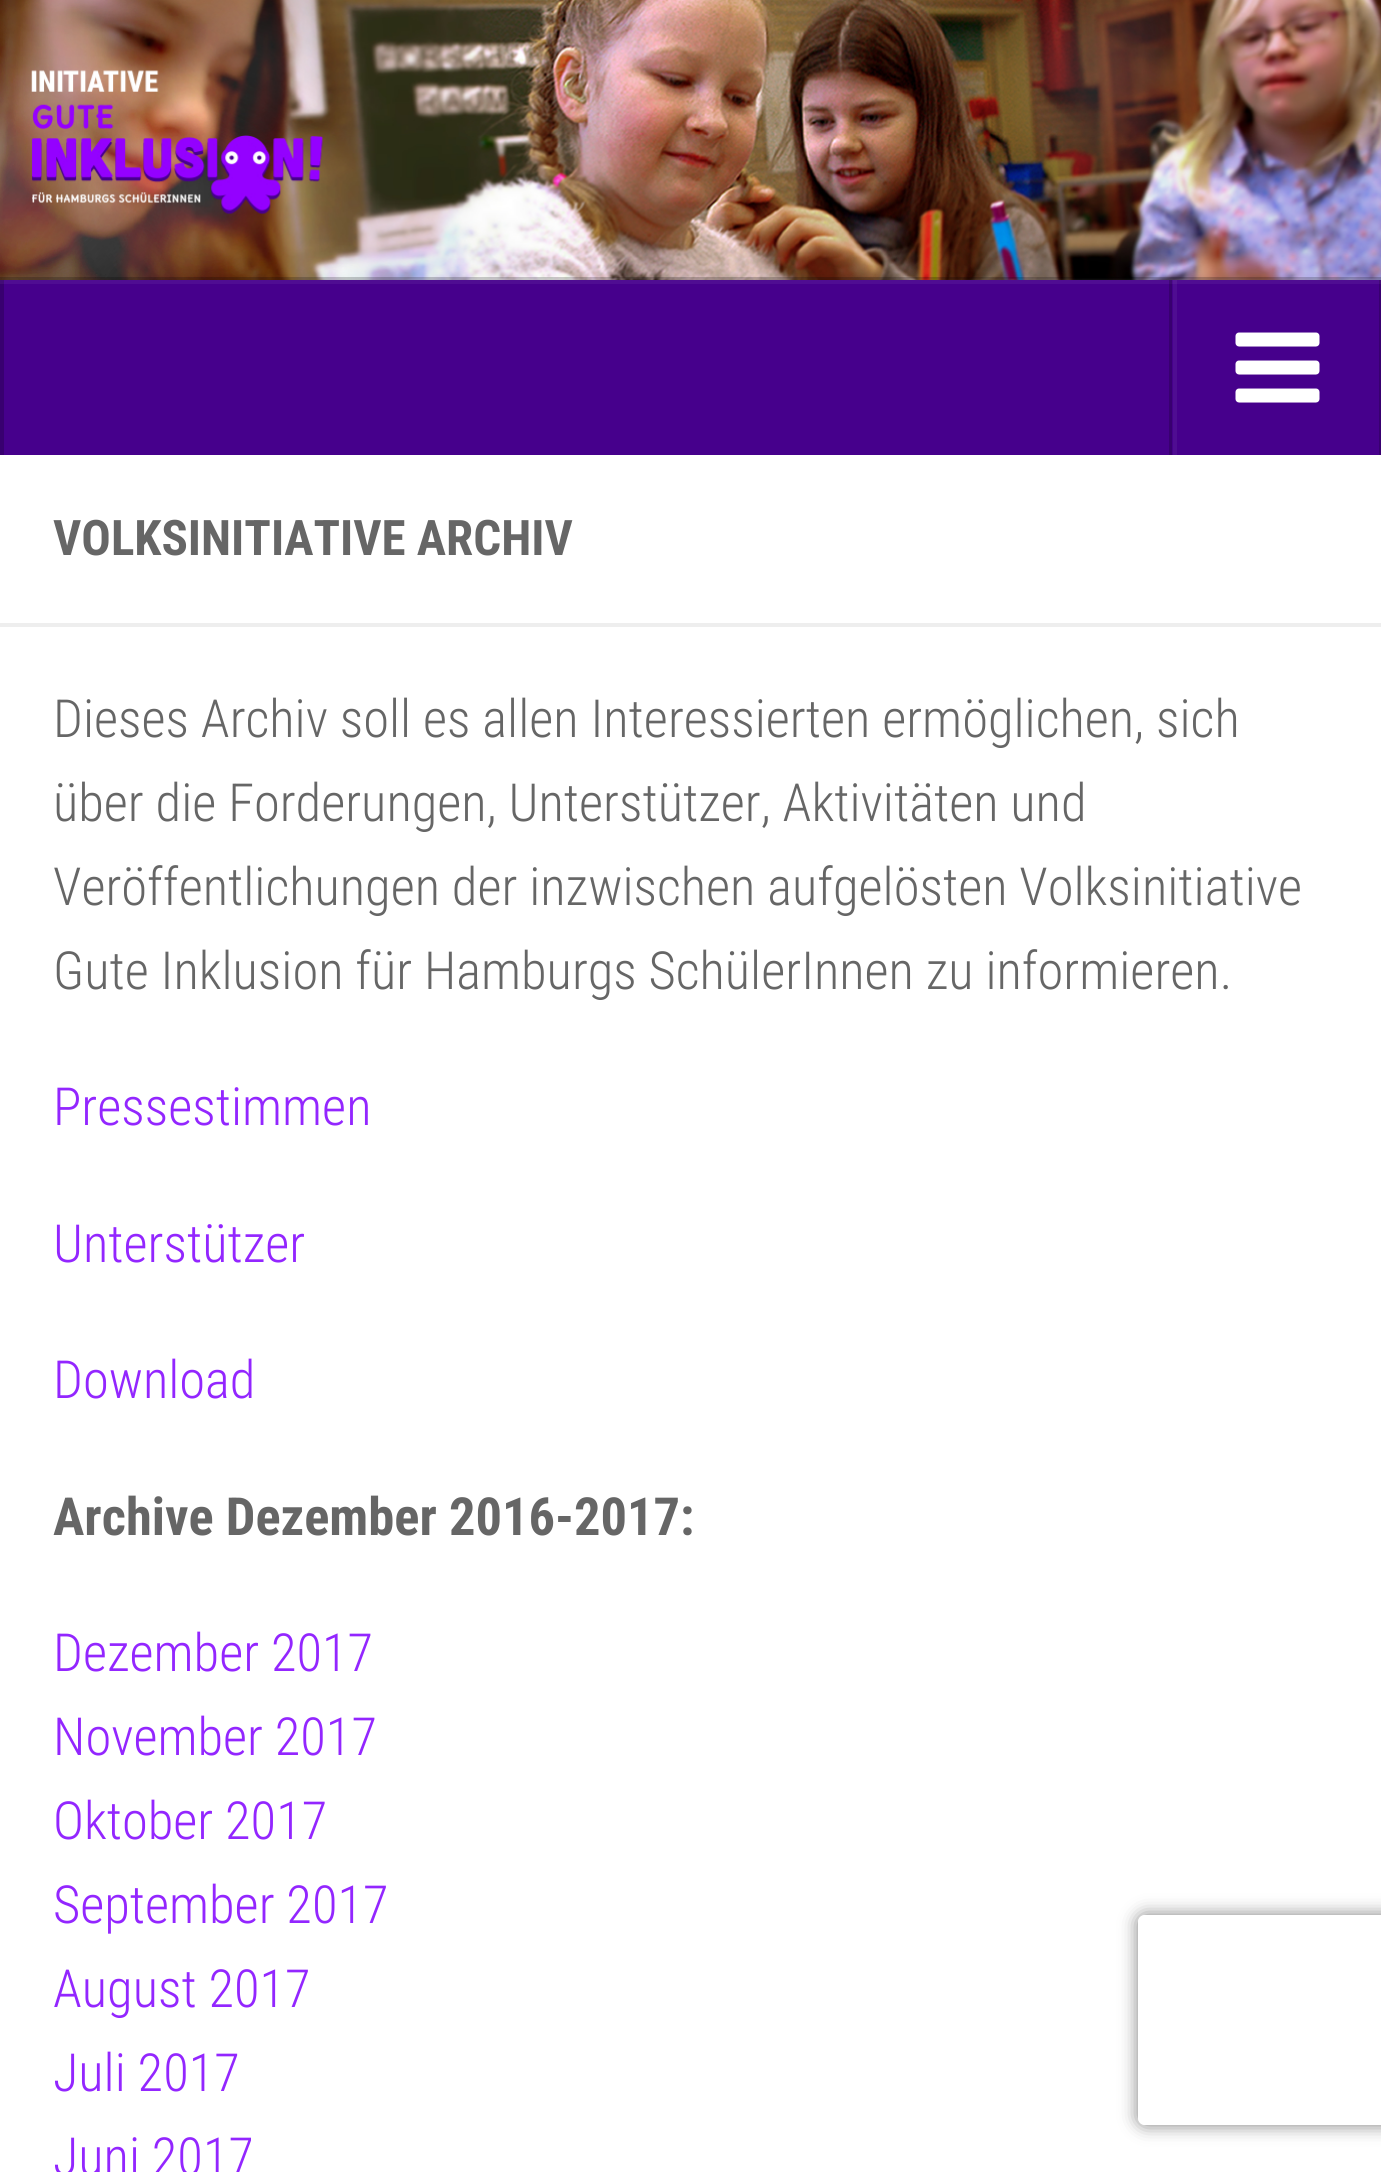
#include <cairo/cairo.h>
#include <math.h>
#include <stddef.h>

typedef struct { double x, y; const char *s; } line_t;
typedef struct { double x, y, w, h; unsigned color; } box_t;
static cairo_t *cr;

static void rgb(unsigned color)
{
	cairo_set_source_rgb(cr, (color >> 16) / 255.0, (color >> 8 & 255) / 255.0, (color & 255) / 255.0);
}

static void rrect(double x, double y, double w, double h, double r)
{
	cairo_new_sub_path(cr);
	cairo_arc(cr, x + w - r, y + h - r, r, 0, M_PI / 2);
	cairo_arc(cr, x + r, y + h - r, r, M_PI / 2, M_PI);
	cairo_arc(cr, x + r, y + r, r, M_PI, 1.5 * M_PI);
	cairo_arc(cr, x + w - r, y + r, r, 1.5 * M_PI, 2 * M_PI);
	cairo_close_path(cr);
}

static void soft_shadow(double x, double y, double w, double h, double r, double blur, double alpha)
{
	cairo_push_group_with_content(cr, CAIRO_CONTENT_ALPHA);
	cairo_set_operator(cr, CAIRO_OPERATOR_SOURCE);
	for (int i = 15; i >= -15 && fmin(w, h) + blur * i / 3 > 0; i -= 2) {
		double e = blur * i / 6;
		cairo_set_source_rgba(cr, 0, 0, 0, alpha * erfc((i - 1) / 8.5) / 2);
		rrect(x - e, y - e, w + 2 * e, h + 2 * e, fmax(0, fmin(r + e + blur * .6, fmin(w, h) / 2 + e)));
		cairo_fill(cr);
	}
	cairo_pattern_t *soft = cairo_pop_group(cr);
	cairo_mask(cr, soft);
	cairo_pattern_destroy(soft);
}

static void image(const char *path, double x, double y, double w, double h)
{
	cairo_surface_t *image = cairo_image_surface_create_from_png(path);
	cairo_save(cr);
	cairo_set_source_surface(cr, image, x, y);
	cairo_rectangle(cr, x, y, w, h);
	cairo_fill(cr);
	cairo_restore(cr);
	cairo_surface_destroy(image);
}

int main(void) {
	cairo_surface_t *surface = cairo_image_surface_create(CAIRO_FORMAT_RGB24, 1381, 2172);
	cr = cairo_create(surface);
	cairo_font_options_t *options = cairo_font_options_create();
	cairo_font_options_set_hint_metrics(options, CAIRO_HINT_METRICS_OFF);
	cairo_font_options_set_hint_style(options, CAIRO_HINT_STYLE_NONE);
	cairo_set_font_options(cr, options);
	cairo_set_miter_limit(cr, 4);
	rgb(0xffffff);
	cairo_paint(cr);
	image("img/1.png", 0, 0, 1381, 280);
	cairo_set_source_rgba(cr, 0, 0, 0, 0.2);
	cairo_new_path(cr);
	cairo_move_to(cr, 0, 277);
	cairo_line_to(cr, 0, 280);
	cairo_line_to(cr, 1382, 280);
	cairo_line_to(cr, 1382, 452);
	cairo_line_to(cr, 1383, 452);
	cairo_line_to(cr, 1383, 277);
	cairo_close_path(cr);
	cairo_fill(cr);
	{
		static const box_t items[] = {
			{4, 284, 1375, 171, 0x46008c},
			{1173, 280, 4, 175, 0x4f0d92},
			{1169, 280, 3, 175, 0x380070},
			{0, 280, 1381, 4, 0x4f0d92},
			{1173, 280, 4, 4, 0x581997},
			{1169, 280, 3, 4, 0x3f0a75},
			{1379, 280, 2, 175, 0x380070},
			{1379, 280, 2, 4, 0x420d77},
			{0, 280, 4, 175, 0x380070},
			{0, 280, 4, 4, 0x420d77},
		};
		for (size_t i = 0; i < sizeof items / sizeof *items; i++) {
			rgb(items[i].color);
			cairo_rectangle(cr, items[i].x, items[i].y, items[i].w, items[i].h);
			cairo_fill(cr);
		}
	}
	image("img/2.png", 1235, 332, 85, 71);
	rgb(0xeeeeee);
	cairo_rectangle(cr, 0, 623, 1381, 4);
	cairo_fill(cr);
	cairo_save(cr);
	cairo_set_fill_rule(cr, CAIRO_FILL_RULE_EVEN_ODD);
	cairo_new_path(cr);
	cairo_move_to(cr, 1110, 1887);
	cairo_line_to(cr, 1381, 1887);
	cairo_line_to(cr, 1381, 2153);
	cairo_line_to(cr, 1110, 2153);
	cairo_close_path(cr);
	cairo_move_to(cr, 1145, 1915);
	cairo_line_to(cr, 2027, 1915);
	cairo_curve_to(cr, 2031, 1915, 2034, 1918, 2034, 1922);
	cairo_line_to(cr, 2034, 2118);
	cairo_curve_to(cr, 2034, 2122, 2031, 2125, 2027, 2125);
	cairo_line_to(cr, 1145, 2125);
	cairo_curve_to(cr, 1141, 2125, 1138, 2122, 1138, 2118);
	cairo_line_to(cr, 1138, 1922);
	cairo_curve_to(cr, 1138, 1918, 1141, 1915, 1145, 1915);
	cairo_close_path(cr);
	cairo_clip(cr);
	rgb(0x808080);
	soft_shadow(1138, 1915, 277, 210, 7, 9, 1);
	cairo_restore(cr);
	cairo_select_font_face(cr, "Roboto Condensed", CAIRO_FONT_SLANT_NORMAL, CAIRO_FONT_WEIGHT_BOLD);
	cairo_set_font_size(cr, 49);
	rgb(0x666666);
	cairo_move_to(cr, 53, 555);
	cairo_show_text(cr, "VOLKSINITIATIVE ARCHIV");
	cairo_select_font_face(cr, "Roboto Condensed Light", CAIRO_FONT_SLANT_NORMAL, CAIRO_FONT_WEIGHT_NORMAL);
	cairo_set_font_size(cr, 52.5);
	{
		static const line_t items[] = {
			{53, 737, "Dieses Archiv soll es allen Interessierten ermöglichen, sich"},
			{53, 821, "über die Forderungen, Unterstützer, Aktivitäten und"},
			{53, 905, "Veröffentlichungen der inzwischen aufgelösten Volksinitiative"},
			{53, 989, "Gute Inklusion für Hamburgs SchülerInnen zu informieren."},
		};
		for (size_t i = 0; i < sizeof items / sizeof *items; i++) {
			cairo_move_to(cr, items[i].x, items[i].y);
			cairo_show_text(cr, items[i].s);
		}
	}
	rgb(0x9326ff);
	{
		static const line_t items[] = {
			{53, 1125, "Pressestimmen"},
			{53, 1262, "Unterstützer"},
			{53, 1398, "Download"},
		};
		for (size_t i = 0; i < sizeof items / sizeof *items; i++) {
			cairo_move_to(cr, items[i].x, items[i].y);
			cairo_show_text(cr, items[i].s);
		}
	}
	cairo_select_font_face(cr, "Roboto Condensed", CAIRO_FONT_SLANT_NORMAL, CAIRO_FONT_WEIGHT_BOLD);
	rgb(0x666666);
	cairo_move_to(cr, 53, 1535);
	cairo_show_text(cr, "Archive Dezember 2016-2017:");
	cairo_select_font_face(cr, "Roboto Condensed Light", CAIRO_FONT_SLANT_NORMAL, CAIRO_FONT_WEIGHT_NORMAL);
	rgb(0x9326ff);
	{
		static const line_t items[] = {
			{53, 1671, "Dezember 2017"},
			{53, 1755, "November 2017"},
			{53, 1839, "Oktober 2017"},
			{53, 1923, "September 2017"},
			{53, 2007, "August 2017"},
			{53, 2091, "Juli 2017"},
			{53, 2175, "Juni 2017"},
		};
		for (size_t i = 0; i < sizeof items / sizeof *items; i++) {
			cairo_move_to(cr, items[i].x, items[i].y);
			cairo_show_text(cr, items[i].s);
		}
	}
	cairo_surface_write_to_png(surface, "page.png");
	cairo_font_options_destroy(options);
	cairo_destroy(cr);
	cairo_surface_destroy(surface);
	return 0;
}
